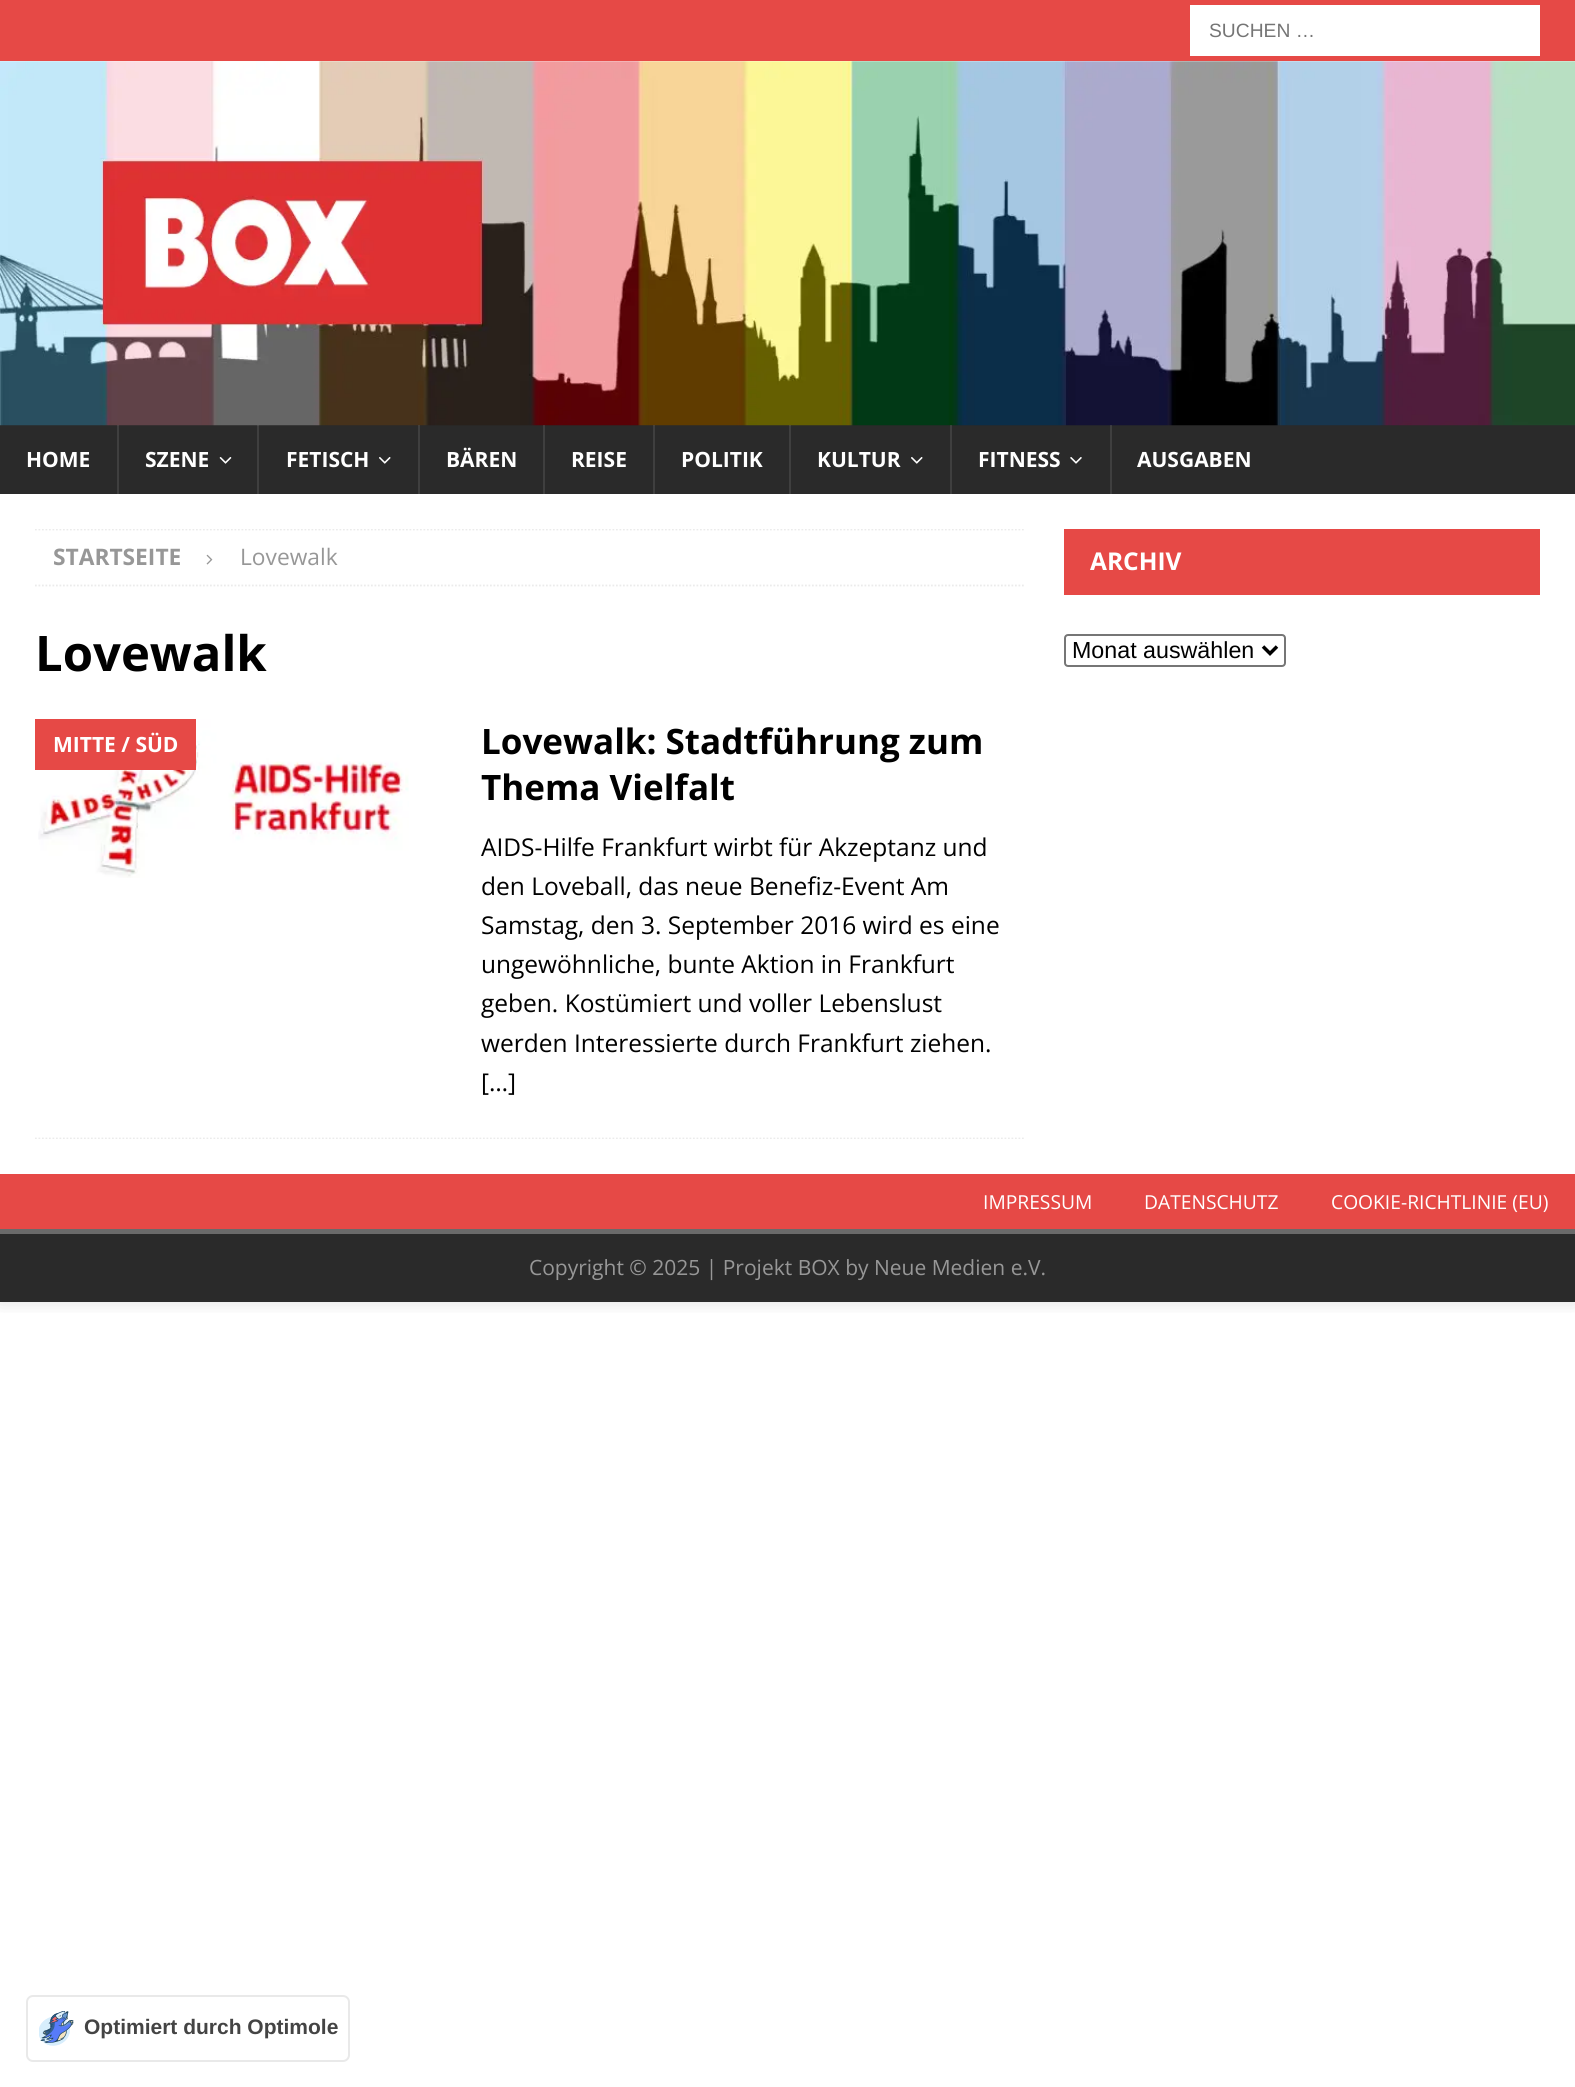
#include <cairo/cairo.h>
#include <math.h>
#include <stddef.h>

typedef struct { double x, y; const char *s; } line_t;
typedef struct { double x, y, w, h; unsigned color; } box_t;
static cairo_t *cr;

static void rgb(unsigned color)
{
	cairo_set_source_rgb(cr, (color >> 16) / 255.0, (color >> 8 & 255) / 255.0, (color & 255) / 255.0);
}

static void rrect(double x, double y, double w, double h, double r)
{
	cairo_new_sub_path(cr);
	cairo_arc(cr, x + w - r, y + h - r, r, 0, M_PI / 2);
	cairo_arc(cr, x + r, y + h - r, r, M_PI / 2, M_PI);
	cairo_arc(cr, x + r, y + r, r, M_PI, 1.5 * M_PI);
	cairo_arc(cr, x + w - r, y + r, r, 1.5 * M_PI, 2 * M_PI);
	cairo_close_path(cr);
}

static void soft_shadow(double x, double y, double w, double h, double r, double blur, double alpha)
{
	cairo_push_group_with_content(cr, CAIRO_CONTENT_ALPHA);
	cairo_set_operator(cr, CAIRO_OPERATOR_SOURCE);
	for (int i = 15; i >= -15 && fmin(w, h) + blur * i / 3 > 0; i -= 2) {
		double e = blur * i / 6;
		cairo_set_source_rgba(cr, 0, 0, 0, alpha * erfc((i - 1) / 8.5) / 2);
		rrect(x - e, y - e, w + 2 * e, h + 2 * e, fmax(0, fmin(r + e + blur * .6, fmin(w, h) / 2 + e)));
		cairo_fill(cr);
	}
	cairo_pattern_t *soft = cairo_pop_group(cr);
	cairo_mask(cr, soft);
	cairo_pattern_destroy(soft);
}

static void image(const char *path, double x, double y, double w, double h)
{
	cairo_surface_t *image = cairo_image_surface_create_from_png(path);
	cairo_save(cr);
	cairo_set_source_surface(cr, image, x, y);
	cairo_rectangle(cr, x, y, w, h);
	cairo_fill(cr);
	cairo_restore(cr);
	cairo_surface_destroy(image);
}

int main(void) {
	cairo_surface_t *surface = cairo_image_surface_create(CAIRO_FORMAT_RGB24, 1575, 2087);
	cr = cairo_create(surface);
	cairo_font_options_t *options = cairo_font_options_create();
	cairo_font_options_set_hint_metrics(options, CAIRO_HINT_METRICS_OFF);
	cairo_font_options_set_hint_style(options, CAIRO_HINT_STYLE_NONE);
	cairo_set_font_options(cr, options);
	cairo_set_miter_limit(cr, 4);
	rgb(0xffffff);
	cairo_paint(cr);
	cairo_save(cr);
	cairo_rectangle(cr, 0, 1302, 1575, 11);
	cairo_clip(cr);
	rgb(0x323232);
	soft_shadow(0, 0, 1575, 1302, 0, 9, 0.17);
	cairo_restore(cr);
	{
		static const box_t items[] = {
			{0, 0, 1575, 61, 0xe64946},
			{1190, 5, 350, 51, 0xffffff},
			{0, 425, 1575, 69, 0x2a2a2a},
		};
		for (size_t i = 0; i < sizeof items / sizeof *items; i++) {
			rgb(items[i].color);
			cairo_rectangle(cr, items[i].x, items[i].y, items[i].w, items[i].h);
			cairo_fill(cr);
		}
	}
	image("img/1.png", 0, 61, 1575, 365);
	cairo_set_source_rgba(cr, 1, 1, 1, 0.1);
	cairo_rectangle(cr, 117, 425, 2, 69);
	cairo_fill(cr);
	image("img/2.png", 219, 457, 13, 7);
	cairo_rectangle(cr, 257, 425, 2, 69);
	cairo_fill(cr);
	image("img/3.png", 379, 457, 12, 7);
	cairo_rectangle(cr, 418, 425, 2, 69);
	cairo_fill(cr);
	cairo_rectangle(cr, 543, 425, 2, 69);
	cairo_fill(cr);
	cairo_rectangle(cr, 653, 425, 2, 69);
	cairo_fill(cr);
	cairo_rectangle(cr, 789, 425, 2, 69);
	cairo_fill(cr);
	image("img/3.png", 911, 457, 12, 7);
	cairo_rectangle(cr, 950, 425, 2, 69);
	cairo_fill(cr);
	image("img/4.png", 1070, 457, 12, 7);
	cairo_rectangle(cr, 1110, 425, 2, 69);
	cairo_fill(cr);
	cairo_save(cr);
	cairo_rectangle(cr, 35, 529, 991, 610);
	cairo_clip(cr);
	cairo_new_path(cr);
	cairo_move_to(cr, 35, 529.5);
	cairo_line_to(cr, 1025.5, 529.5);
	rgb(0xebebeb);
	cairo_set_line_width(cr, 1.8);
	cairo_set_dash(cr, (double[]){1.75, 1.75}, 2, 0);
	cairo_stroke(cr);
	cairo_restore(cr);
	cairo_new_path(cr);
	cairo_move_to(cr, 35, 585.5);
	cairo_line_to(cr, 1025.5, 585.5);
	rgb(0xebebeb);
	cairo_set_line_width(cr, 1.8);
	cairo_set_dash(cr, (double[]){1.75, 1.75}, 2, 0);
	cairo_stroke(cr);
	image("img/5.png", 206, 554, 7, 11);
	cairo_save(cr);
	cairo_rectangle(cr, 35, 529, 991, 610);
	cairo_clip(cr);
	cairo_new_path(cr);
	cairo_move_to(cr, 35, 1138.5);
	cairo_line_to(cr, 1025.5, 1138.5);
	cairo_stroke(cr);
	cairo_restore(cr);
	image("img/6.png", 38, 719, 371, 159);
	rgb(0xe64946);
	cairo_rectangle(cr, 35, 719, 161, 51);
	cairo_fill(cr);
	cairo_rectangle(cr, 1064, 529, 476, 66);
	cairo_fill(cr);
	rrect(1065, 635, 220, 31, 3);
	rgb(0x767676);
	cairo_set_line_width(cr, 2);
	cairo_set_dash(cr, NULL, 0, 0);
	cairo_stroke(cr);
	cairo_new_path(cr);
	cairo_move_to(cr, 1263, 646.5);
	cairo_line_to(cr, 1270, 653.5);
	cairo_line_to(cr, 1277, 646.5);
	rgb(0x000000);
	cairo_set_line_width(cr, 3.5);
	cairo_stroke(cr);
	{
		static const box_t items[] = {
			{0, 1174, 1575, 55, 0xe64946},
			{0, 1234, 1575, 68, 0x2a2a2a},
			{0, 1229, 1575, 5, 0x6a6a6a},
		};
		for (size_t i = 0; i < sizeof items / sizeof *items; i++) {
			rgb(items[i].color);
			cairo_rectangle(cr, items[i].x, items[i].y, items[i].w, items[i].h);
			cairo_fill(cr);
		}
	}
	rrect(27, 1996, 322, 65, 6);
	rgb(0xe9e9e9);
	cairo_set_line_width(cr, 2);
	cairo_stroke(cr);
	image("img/7.png", 39, 2011, 35, 35);
	cairo_select_font_face(cr, "Liberation Sans", CAIRO_FONT_SLANT_NORMAL, CAIRO_FONT_WEIGHT_NORMAL);
	cairo_set_font_size(cr, 19.25);
	rgb(0x757575);
	cairo_move_to(cr, 1209, 37);
	cairo_show_text(cr, "SUCHEN …");
	cairo_select_font_face(cr, "Open Sans", CAIRO_FONT_SLANT_NORMAL, CAIRO_FONT_WEIGHT_BOLD);
	cairo_set_font_size(cr, 21);
	rgb(0xffffff);
	{
		static const line_t items[] = {
			{26, 467, "HOME"},
			{145, 467, "SZENE"},
			{286, 467, "FETISCH"},
			{446, 467, "BÄREN"},
			{571, 467, "REISE"},
			{681, 467, "POLITIK"},
			{817, 467, "KULTUR"},
			{978, 467, "FITNESS"},
			{1137, 467, "AUSGABEN"},
		};
		for (size_t i = 0; i < sizeof items / sizeof *items; i++) {
			cairo_move_to(cr, items[i].x, items[i].y);
			cairo_show_text(cr, items[i].s);
		}
	}
	cairo_set_font_size(cr, 22.75);
	rgb(0x979797);
	cairo_move_to(cr, 53, 565);
	cairo_show_text(cr, "STARTSEITE");
	cairo_select_font_face(cr, "Open Sans", CAIRO_FONT_SLANT_NORMAL, CAIRO_FONT_WEIGHT_NORMAL);
	cairo_move_to(cr, 240, 565);
	cairo_show_text(cr, "Lovewalk");
	cairo_select_font_face(cr, "Open Sans", CAIRO_FONT_SLANT_NORMAL, CAIRO_FONT_WEIGHT_BOLD);
	cairo_set_font_size(cr, 49);
	rgb(0x000000);
	cairo_move_to(cr, 35, 671);
	cairo_show_text(cr, "Lovewalk");
	cairo_set_font_size(cr, 21);
	rgb(0xffffff);
	cairo_move_to(cr, 53, 752);
	cairo_show_text(cr, "MITTE / SÜD");
	cairo_set_font_size(cr, 35);
	rgb(0x000000);
	cairo_move_to(cr, 481, 754);
	cairo_show_text(cr, "Lovewalk: Stadtführung zum");
	cairo_move_to(cr, 481, 800);
	cairo_show_text(cr, "Thema Vielfalt");
	cairo_select_font_face(cr, "Open Sans", CAIRO_FONT_SLANT_NORMAL, CAIRO_FONT_WEIGHT_NORMAL);
	cairo_set_font_size(cr, 24.5);
	{
		static const line_t items[] = {
			{481, 856, "AIDS-Hilfe Frankfurt wirbt für Akzeptanz und"},
			{481, 895, "den Loveball, das neue Benefiz-Event Am"},
			{481, 934, "Samstag, den 3. September 2016 wird es eine"},
			{481, 973, "ungewöhnliche, bunte Aktion in Frankfurt"},
			{481, 1012, "geben. Kostümiert und voller Lebenslust"},
			{481, 1052, "werden Interessierte durch Frankfurt ziehen."},
			{481, 1091, "[…]"},
		};
		for (size_t i = 0; i < sizeof items / sizeof *items; i++) {
			cairo_move_to(cr, items[i].x, items[i].y);
			cairo_show_text(cr, items[i].s);
		}
	}
	cairo_select_font_face(cr, "Open Sans", CAIRO_FONT_SLANT_NORMAL, CAIRO_FONT_WEIGHT_BOLD);
	rgb(0xffffff);
	cairo_move_to(cr, 1090, 570);
	cairo_show_text(cr, "ARCHIV");
	cairo_select_font_face(cr, "Liberation Sans", CAIRO_FONT_SLANT_NORMAL, CAIRO_FONT_WEIGHT_NORMAL);
	cairo_set_font_size(cr, 23.25);
	rgb(0x000000);
	cairo_move_to(cr, 1072, 658);
	cairo_show_text(cr, "Monat auswählen");
	cairo_select_font_face(cr, "Open Sans", CAIRO_FONT_SLANT_NORMAL, CAIRO_FONT_WEIGHT_NORMAL);
	cairo_set_font_size(cr, 19.25);
	rgb(0xffffff);
	{
		static const line_t items[] = {
			{983, 1209, "IMPRESSUM"},
			{1144, 1209, "DATENSCHUTZ"},
			{1331, 1209, "COOKIE-RICHTLINIE (EU)"},
		};
		for (size_t i = 0; i < sizeof items / sizeof *items; i++) {
			cairo_move_to(cr, items[i].x, items[i].y);
			cairo_show_text(cr, items[i].s);
		}
	}
	cairo_set_font_size(cr, 21);
	rgb(0x979797);
	cairo_move_to(cr, 529, 1275);
	cairo_show_text(cr, "Copyright © 2025 | Projekt BOX by Neue Medien e.V.");
	cairo_select_font_face(cr, "Liberation Sans", CAIRO_FONT_SLANT_NORMAL, CAIRO_FONT_WEIGHT_BOLD);
	rgb(0x444444);
	cairo_move_to(cr, 84, 2034);
	cairo_show_text(cr, "Optimiert durch Optimole");
	cairo_surface_write_to_png(surface, "page.png");
	cairo_font_options_destroy(options);
	cairo_destroy(cr);
	cairo_surface_destroy(surface);
	return 0;
}
